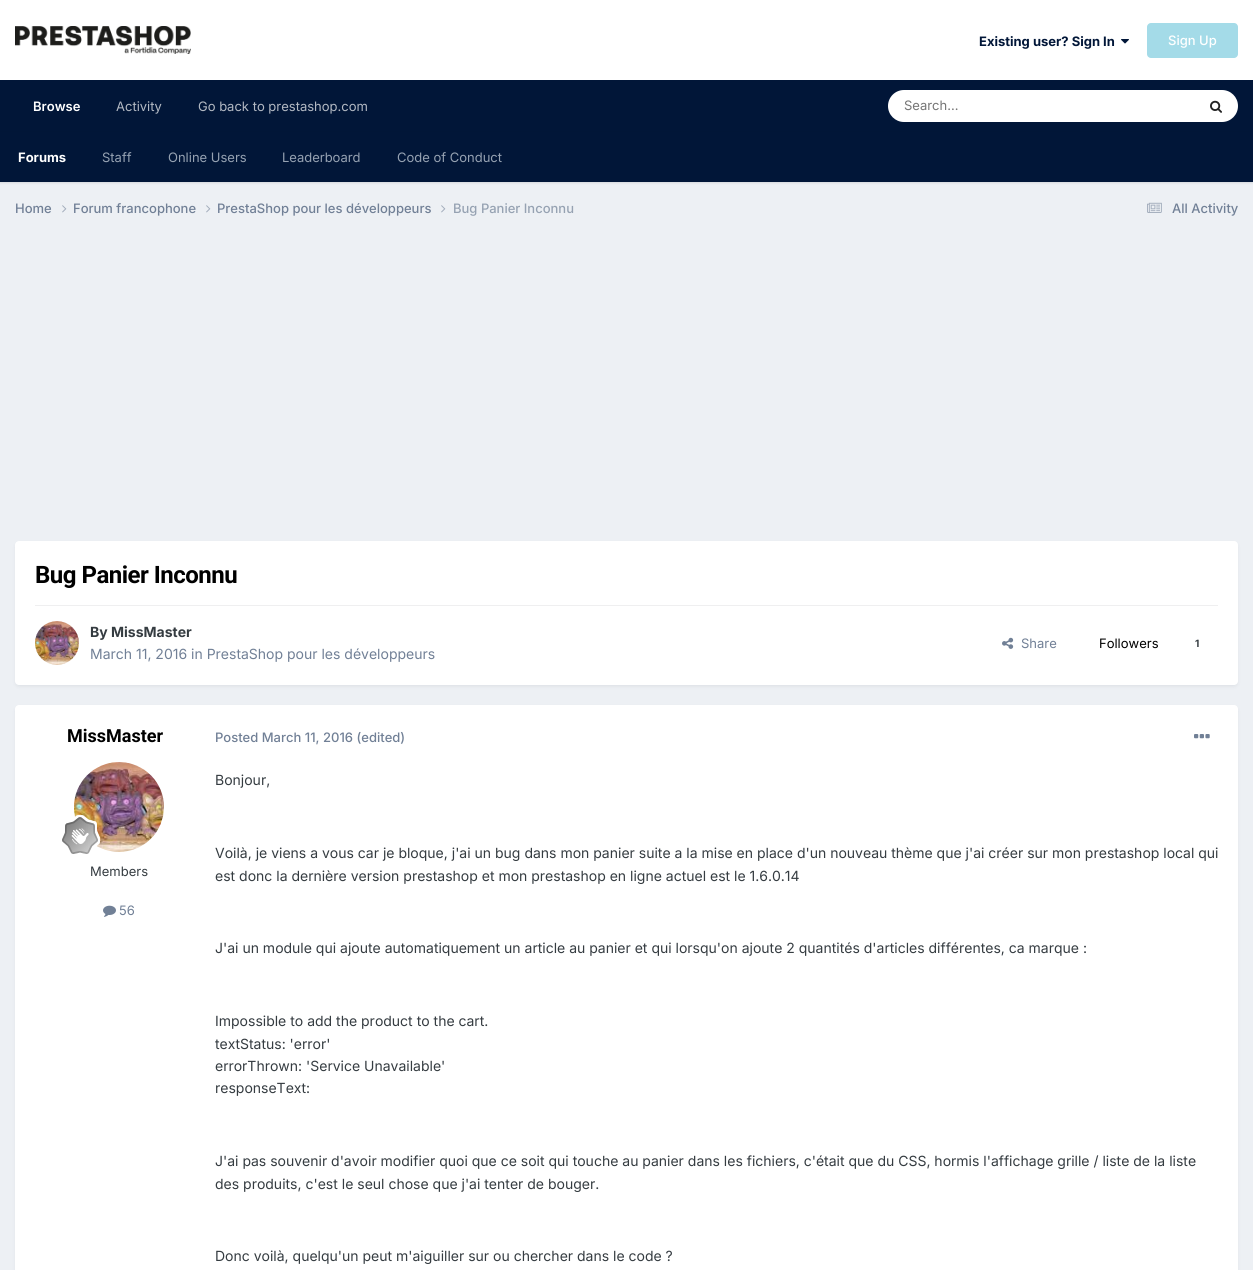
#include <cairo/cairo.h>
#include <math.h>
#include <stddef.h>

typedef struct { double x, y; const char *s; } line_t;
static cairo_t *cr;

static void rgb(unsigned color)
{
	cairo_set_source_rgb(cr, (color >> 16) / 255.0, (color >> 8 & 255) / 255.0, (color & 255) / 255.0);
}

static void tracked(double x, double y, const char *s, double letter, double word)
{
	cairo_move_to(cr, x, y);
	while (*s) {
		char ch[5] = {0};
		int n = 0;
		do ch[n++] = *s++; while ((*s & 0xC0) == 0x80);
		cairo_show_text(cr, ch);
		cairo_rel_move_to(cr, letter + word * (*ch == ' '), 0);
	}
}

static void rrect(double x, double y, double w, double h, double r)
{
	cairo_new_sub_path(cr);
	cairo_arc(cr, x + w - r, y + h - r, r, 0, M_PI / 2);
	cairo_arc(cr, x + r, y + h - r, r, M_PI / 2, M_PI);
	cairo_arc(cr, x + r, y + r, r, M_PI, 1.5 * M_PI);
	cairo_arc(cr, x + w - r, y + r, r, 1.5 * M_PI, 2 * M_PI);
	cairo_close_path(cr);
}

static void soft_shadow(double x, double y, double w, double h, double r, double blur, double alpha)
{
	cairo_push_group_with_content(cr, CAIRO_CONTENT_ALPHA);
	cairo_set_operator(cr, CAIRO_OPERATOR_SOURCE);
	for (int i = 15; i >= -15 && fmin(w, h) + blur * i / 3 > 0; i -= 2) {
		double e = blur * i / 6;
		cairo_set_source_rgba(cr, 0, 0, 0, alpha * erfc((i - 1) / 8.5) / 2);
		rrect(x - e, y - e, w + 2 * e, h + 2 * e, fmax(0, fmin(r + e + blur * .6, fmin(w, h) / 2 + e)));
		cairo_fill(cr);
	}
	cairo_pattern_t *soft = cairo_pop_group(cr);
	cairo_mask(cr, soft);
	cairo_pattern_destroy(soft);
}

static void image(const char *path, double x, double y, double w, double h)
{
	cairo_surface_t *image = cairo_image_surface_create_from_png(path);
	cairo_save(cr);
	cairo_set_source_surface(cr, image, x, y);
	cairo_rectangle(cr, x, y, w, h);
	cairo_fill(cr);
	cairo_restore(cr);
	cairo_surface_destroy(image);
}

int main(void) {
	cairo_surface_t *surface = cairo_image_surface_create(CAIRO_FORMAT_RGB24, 1253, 1270);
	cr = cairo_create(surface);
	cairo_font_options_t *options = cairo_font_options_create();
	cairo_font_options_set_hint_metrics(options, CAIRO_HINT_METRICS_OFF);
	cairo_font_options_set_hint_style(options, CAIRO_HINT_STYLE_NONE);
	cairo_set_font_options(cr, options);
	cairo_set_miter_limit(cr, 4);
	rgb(0xedf0f4);
	cairo_paint(cr);
	rgb(0xffffff);
	cairo_rectangle(cr, 0, 0, 1253, 80);
	cairo_fill(cr);
	image("img/1.png", 15, 26, 176, 28);
	image("img/2.png", 1121, 39, 8, 5);
	rgb(0xa4dbe8);
	rrect(1147, 23, 91, 35, 4);
	cairo_fill(cr);
	rgb(0x011638);
	cairo_rectangle(cr, 0, 80, 1253, 52);
	cairo_fill(cr);
	rgb(0xffffff);
	rrect(888, 90, 350, 32, 16);
	cairo_fill(cr);
	image("img/3.png", 1210, 100, 12, 13);
	rgb(0x000000);
	soft_shadow(0, 133, 1253, 50, 0, 1, 0.1);
	rgb(0x011638);
	cairo_rectangle(cr, 0, 132, 1253, 50);
	cairo_fill(cr);
	image("img/4.png", 62, 205, 5, 8);
	image("img/4.png", 206, 205, 5, 8);
	image("img/4.png", 441, 205, 5, 8);
	image("img/5.png", 1147, 202, 15, 11);
	rgb(0x2d3748);
	soft_shadow(16, 544, 1221, 142, 3, 2, 0.1);
	rgb(0xffffff);
	rrect(15, 541, 1223, 144, 4);
	cairo_fill(cr);
	rgb(0xefeff0);
	cairo_rectangle(cr, 35, 605, 1183, 1);
	cairo_fill(cr);
	image("img/6.png", 35, 621, 44, 44);
	image("img/7.png", 1002, 637, 12, 12);
	rgb(0x2d3748);
	soft_shadow(16, 708, 1221, 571, 3, 2, 0.1);
	rgb(0xffffff);
	rrect(15, 705, 1223, 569, 4);
	cairo_fill(cr);
	image("img/8.png", 74, 762, 90, 90);
	image("img/9.png", 62, 815, 38, 39);
	image("img/10.png", 103, 905, 13, 12);
	image("img/11.png", 1194, 734, 16, 5);
	cairo_select_font_face(cr, "Inter", CAIRO_FONT_SLANT_NORMAL, CAIRO_FONT_WEIGHT_BOLD);
	cairo_set_font_size(cr, 13);
	rgb(0x011638);
	cairo_move_to(cr, 979, 46);
	cairo_show_text(cr, "Existing user? Sign In");
	cairo_select_font_face(cr, "Inter Medium", CAIRO_FONT_SLANT_NORMAL, CAIRO_FONT_WEIGHT_NORMAL);
	rgb(0xffffff);
	cairo_move_to(cr, 1168, 45);
	cairo_show_text(cr, "Sign Up");
	cairo_select_font_face(cr, "Inter SemiBold", CAIRO_FONT_SLANT_NORMAL, CAIRO_FONT_WEIGHT_NORMAL);
	cairo_move_to(cr, 33, 111);
	cairo_show_text(cr, "Browse");
	cairo_select_font_face(cr, "Inter", CAIRO_FONT_SLANT_NORMAL, CAIRO_FONT_WEIGHT_BOLD);
	cairo_move_to(cr, 18, 162);
	cairo_show_text(cr, "Forums");
	cairo_select_font_face(cr, "Inter", CAIRO_FONT_SLANT_NORMAL, CAIRO_FONT_WEIGHT_NORMAL);
	rgb(0x96a2b2);
	{
		static const line_t items[] = {
			{102, 162, "Staff"},
			{168, 162, "Online Users"},
			{282, 162, "Leaderboard"},
			{397, 162, "Code of Conduct"},
		};
		for (size_t i = 0; i < sizeof items / sizeof *items; i++) {
			cairo_move_to(cr, items[i].x, items[i].y);
			cairo_show_text(cr, items[i].s);
		}
	}
	rgb(0xb3b9c3);
	cairo_move_to(cr, 116, 111);
	cairo_show_text(cr, "Activity");
	cairo_move_to(cr, 198, 111);
	cairo_show_text(cr, "Go back to prestashop.com");
	rgb(0x757575);
	cairo_move_to(cr, 904, 110);
	cairo_show_text(cr, "Search...");
	cairo_select_font_face(cr, "Inter Medium", CAIRO_FONT_SLANT_NORMAL, CAIRO_FONT_WEIGHT_NORMAL);
	rgb(0x718096);
	{
		static const line_t items[] = {
			{15, 213, "Home"},
			{73, 213, "Forum francophone"},
			{217, 213, "PrestaShop pour les développeurs"},
		};
		for (size_t i = 0; i < sizeof items / sizeof *items; i++) {
			cairo_move_to(cr, items[i].x, items[i].y);
			cairo_show_text(cr, items[i].s);
		}
	}
	rgb(0x96a2b2);
	cairo_move_to(cr, 453, 213);
	cairo_show_text(cr, "Bug Panier Inconnu");
	rgb(0x718096);
	cairo_move_to(cr, 1172, 213);
	cairo_show_text(cr, "All Activity");
	cairo_select_font_face(cr, "Roboto", CAIRO_FONT_SLANT_NORMAL, CAIRO_FONT_WEIGHT_BOLD);
	cairo_set_font_size(cr, 24);
	rgb(0x000000);
	tracked(35, 583, "Bug Panier Inconnu", -0.5, 0);
	cairo_select_font_face(cr, "Inter", CAIRO_FONT_SLANT_NORMAL, CAIRO_FONT_WEIGHT_BOLD);
	cairo_set_font_size(cr, 14);
	rgb(0x353c41);
	cairo_move_to(cr, 90, 637);
	cairo_show_text(cr, "By MissMaster");
	cairo_select_font_face(cr, "Inter", CAIRO_FONT_SLANT_NORMAL, CAIRO_FONT_WEIGHT_NORMAL);
	rgb(0x718096);
	cairo_move_to(cr, 90, 659);
	cairo_show_text(cr, "March 11, 2016 in PrestaShop pour les développeurs");
	cairo_set_font_size(cr, 13);
	cairo_move_to(cr, 1021, 648);
	cairo_show_text(cr, "Share");
	rgb(0x000000);
	cairo_move_to(cr, 1099, 648);
	cairo_show_text(cr, "Followers");
	cairo_select_font_face(cr, "Inter", CAIRO_FONT_SLANT_NORMAL, CAIRO_FONT_WEIGHT_BOLD);
	cairo_set_font_size(cr, 10);
	rgb(0x353c41);
	cairo_move_to(cr, 1195, 647);
	cairo_show_text(cr, "1");
	cairo_select_font_face(cr, "Roboto", CAIRO_FONT_SLANT_NORMAL, CAIRO_FONT_WEIGHT_BOLD);
	cairo_set_font_size(cr, 18);
	rgb(0x000000);
	cairo_move_to(cr, 67, 742);
	cairo_show_text(cr, "MissMaster");
	cairo_select_font_face(cr, "Inter", CAIRO_FONT_SLANT_NORMAL, CAIRO_FONT_WEIGHT_NORMAL);
	cairo_set_font_size(cr, 13);
	rgb(0x353c41);
	cairo_move_to(cr, 90, 876);
	cairo_show_text(cr, "Members");
	rgb(0x718096);
	cairo_move_to(cr, 119, 915);
	cairo_show_text(cr, "56");
	cairo_select_font_face(cr, "Inter Medium", CAIRO_FONT_SLANT_NORMAL, CAIRO_FONT_WEIGHT_NORMAL);
	cairo_move_to(cr, 215, 742);
	cairo_show_text(cr, "Posted March 11, 2016 (edited)");
	cairo_select_font_face(cr, "Inter", CAIRO_FONT_SLANT_NORMAL, CAIRO_FONT_WEIGHT_NORMAL);
	cairo_set_font_size(cr, 14);
	rgb(0x353c41);
	{
		static const line_t items[] = {
			{215, 785, "Bonjour,"},
			{215, 858, "Voilà, je viens a vous car je bloque, j'ai un bug dans mon panier suite a la mise en place d'un nouveau thème que j'ai créer sur mon prestashop local qui"},
			{215, 881, "est donc la dernière version prestashop et mon prestashop en ligne actuel est le 1.6.0.14"},
			{215, 953, "J'ai un module qui ajoute automatiquement un article au panier et qui lorsqu'on ajoute 2 quantités d'articles différentes, ca marque :"},
			{215, 1026, "Impossible to add the product to the cart."},
			{215, 1049, "textStatus: 'error'"},
			{215, 1071, "errorThrown: 'Service Unavailable'"},
			{215, 1093, "responseText:"},
			{215, 1166, "J'ai pas souvenir d'avoir modifier quoi que ce soit qui touche au panier dans les fichiers, c'était que du CSS, hormis l'affichage grille / liste de la liste"},
			{215, 1189, "des produits, c'est le seul chose que j'ai tenter de bouger."},
			{215, 1261, "Donc voilà, quelqu'un peut m'aiguiller sur ou chercher dans le code ?"},
		};
		for (size_t i = 0; i < sizeof items / sizeof *items; i++) {
			cairo_move_to(cr, items[i].x, items[i].y);
			cairo_show_text(cr, items[i].s);
		}
	}
	cairo_surface_write_to_png(surface, "page.png");
	cairo_font_options_destroy(options);
	cairo_destroy(cr);
	cairo_surface_destroy(surface);
	return 0;
}
